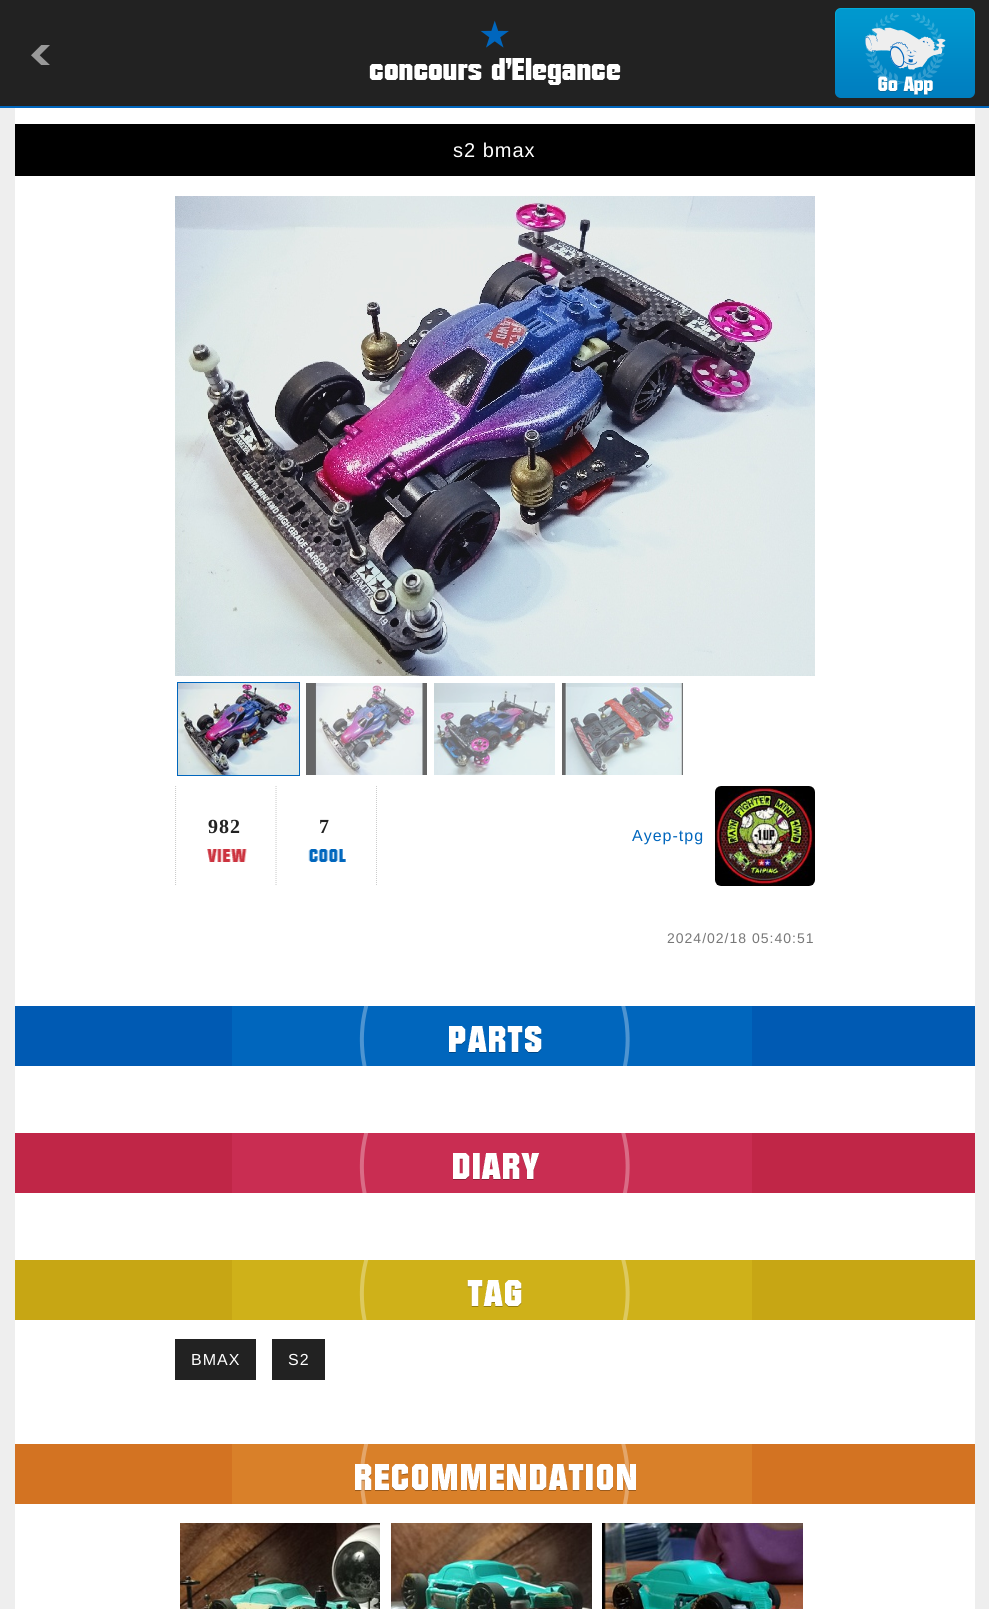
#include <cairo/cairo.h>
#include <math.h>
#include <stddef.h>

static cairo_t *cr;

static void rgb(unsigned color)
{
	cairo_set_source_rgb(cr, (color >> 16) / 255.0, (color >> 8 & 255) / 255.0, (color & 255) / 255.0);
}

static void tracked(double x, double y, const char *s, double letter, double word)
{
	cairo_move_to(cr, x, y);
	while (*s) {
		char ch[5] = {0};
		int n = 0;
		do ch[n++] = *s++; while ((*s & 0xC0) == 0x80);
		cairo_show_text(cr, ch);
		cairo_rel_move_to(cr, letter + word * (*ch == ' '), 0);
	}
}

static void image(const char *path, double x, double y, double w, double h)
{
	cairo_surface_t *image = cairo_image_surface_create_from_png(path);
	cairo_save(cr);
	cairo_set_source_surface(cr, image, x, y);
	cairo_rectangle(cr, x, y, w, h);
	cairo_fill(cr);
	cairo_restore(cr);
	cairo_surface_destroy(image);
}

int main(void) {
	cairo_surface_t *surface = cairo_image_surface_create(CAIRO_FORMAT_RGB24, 989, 1609);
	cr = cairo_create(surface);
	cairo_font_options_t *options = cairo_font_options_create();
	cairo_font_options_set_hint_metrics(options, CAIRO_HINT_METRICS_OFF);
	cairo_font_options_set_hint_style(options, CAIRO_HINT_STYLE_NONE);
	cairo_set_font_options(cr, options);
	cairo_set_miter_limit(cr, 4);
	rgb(0xeeeeee);
	cairo_paint(cr);
	rgb(0x222222);
	cairo_rectangle(cr, 0, 0, 989, 106);
	cairo_fill(cr);
	rgb(0x0066bd);
	cairo_rectangle(cr, 0, 106, 989, 2);
	cairo_fill(cr);
	image("img/1.png", 31, 45, 19, 20);
	image("img/2.png", 369, 20, 252, 65);
	image("img/3.png", 835, 8, 140, 90);
	rgb(0xffffff);
	cairo_rectangle(cr, 15, 108, 960, 1501);
	cairo_fill(cr);
	rgb(0x000000);
	cairo_rectangle(cr, 15, 124, 960, 52);
	cairo_fill(cr);
	image("img/4.png", 175, 196, 640, 480);
	cairo_rectangle(cr, 177.5, 682.5, 122, 93);
	rgb(0x0066bd);
	cairo_set_line_width(cr, 1);
	cairo_stroke(cr);
	image("img/5.png", 178, 683, 121, 92);
	image("img/6.png", 306, 683, 121, 92);
	image("img/7.png", 434, 683, 121, 92);
	image("img/8.png", 562, 683, 121, 92);
	image("img/9.png", 175, 786, 202, 99);
	image("img/10.png", 715, 786, 100, 100);
	image("img/11.png", 15, 1006, 960, 60);
	image("img/12.png", 15, 1133, 960, 60);
	image("img/13.png", 15, 1260, 960, 60);
	rgb(0x222222);
	cairo_rectangle(cr, 175, 1339, 81, 41);
	cairo_fill(cr);
	cairo_rectangle(cr, 272, 1339, 53, 41);
	cairo_fill(cr);
	image("img/14.png", 15, 1444, 960, 60);
	image("img/15.png", 180, 1523, 200, 86);
	image("img/16.png", 391, 1523, 201, 86);
	image("img/17.png", 602, 1523, 201, 86);
	cairo_select_font_face(cr, "Liberation Sans", CAIRO_FONT_SLANT_NORMAL, CAIRO_FONT_WEIGHT_NORMAL);
	cairo_set_font_size(cr, 20);
	rgb(0xffffff);
	tracked(453, 157, "s2 bmax", 1, 0);
	cairo_select_font_face(cr, "Liberation Serif", CAIRO_FONT_SLANT_NORMAL, CAIRO_FONT_WEIGHT_BOLD);
	rgb(0x222222);
	tracked(208, 833, "982", 1, 0);
	tracked(319, 833, "7", 1, 0);
	cairo_select_font_face(cr, "Liberation Sans", CAIRO_FONT_SLANT_NORMAL, CAIRO_FONT_WEIGHT_NORMAL);
	cairo_set_font_size(cr, 16);
	rgb(0x0066bd);
	tracked(632, 841, "Ayep-tpg", 1, 0);
	cairo_set_font_size(cr, 14);
	rgb(0x777777);
	tracked(667, 943, "2024/02/18 05:40:51", 1, 0);
	cairo_set_font_size(cr, 16);
	rgb(0xffffff);
	tracked(191, 1365, "BMAX", 1, 0);
	tracked(288, 1365, "S2", 1, 0);
	cairo_surface_write_to_png(surface, "page.png");
	cairo_font_options_destroy(options);
	cairo_destroy(cr);
	cairo_surface_destroy(surface);
	return 0;
}
